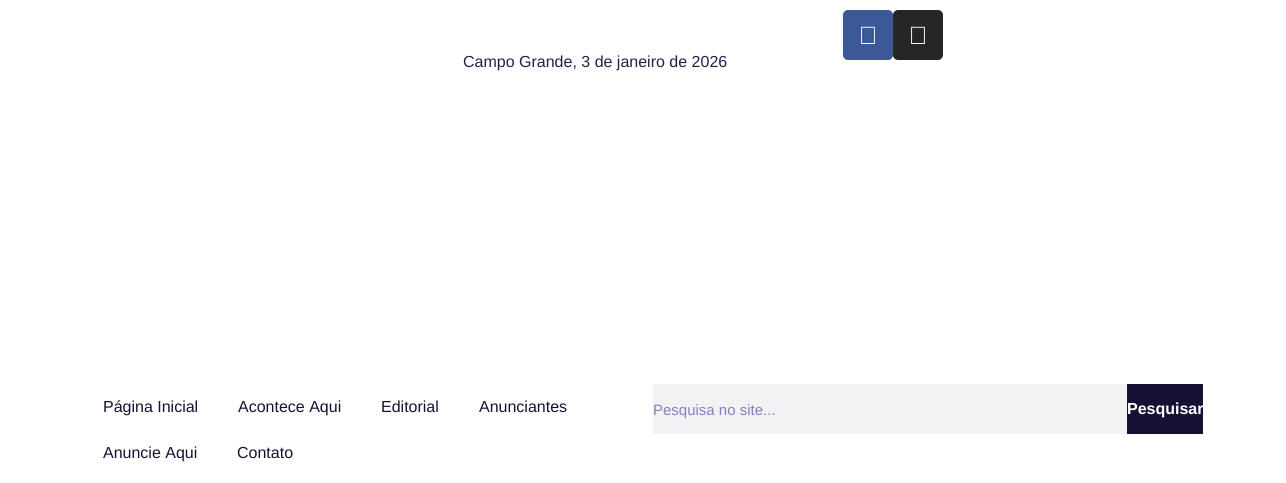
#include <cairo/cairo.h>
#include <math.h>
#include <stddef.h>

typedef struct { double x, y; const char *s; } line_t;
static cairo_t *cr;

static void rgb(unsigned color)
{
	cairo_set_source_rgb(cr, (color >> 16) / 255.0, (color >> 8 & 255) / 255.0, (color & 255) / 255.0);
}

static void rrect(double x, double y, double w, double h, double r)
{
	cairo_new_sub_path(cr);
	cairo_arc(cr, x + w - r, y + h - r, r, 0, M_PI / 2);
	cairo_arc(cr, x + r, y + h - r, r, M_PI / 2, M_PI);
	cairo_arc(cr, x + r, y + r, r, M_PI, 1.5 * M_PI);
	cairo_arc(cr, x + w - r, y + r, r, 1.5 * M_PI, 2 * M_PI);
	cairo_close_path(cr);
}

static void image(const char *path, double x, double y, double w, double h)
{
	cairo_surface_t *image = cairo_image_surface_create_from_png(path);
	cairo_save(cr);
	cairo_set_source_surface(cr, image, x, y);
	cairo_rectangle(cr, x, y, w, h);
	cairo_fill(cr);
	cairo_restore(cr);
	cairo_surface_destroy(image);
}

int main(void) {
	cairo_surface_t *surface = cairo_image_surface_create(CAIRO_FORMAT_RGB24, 1286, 483);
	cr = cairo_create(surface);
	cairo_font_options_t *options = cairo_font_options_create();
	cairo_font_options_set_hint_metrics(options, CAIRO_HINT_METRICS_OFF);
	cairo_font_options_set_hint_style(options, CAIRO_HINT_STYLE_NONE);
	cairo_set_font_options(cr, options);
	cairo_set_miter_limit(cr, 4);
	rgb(0xffffff);
	cairo_paint(cr);
	rgb(0x3b5998);
	rrect(843, 10, 50, 50, 5);
	cairo_fill(cr);
	image("img/1.png", 861, 26, 14, 18);
	rgb(0x262626);
	rrect(893, 10, 50, 50, 5);
	cairo_fill(cr);
	image("img/2.png", 911, 26, 14, 18);
	rgb(0xf1f2f3);
	cairo_rectangle(cr, 653, 384, 474, 50);
	cairo_fill(cr);
	rgb(0x161132);
	cairo_rectangle(cr, 1127, 384, 76, 50);
	cairo_fill(cr);
	cairo_select_font_face(cr, "Liberation Sans", CAIRO_FONT_SLANT_NORMAL, CAIRO_FONT_WEIGHT_NORMAL);
	cairo_set_font_size(cr, 16);
	rgb(0x251f47);
	cairo_move_to(cr, 463, 67);
	cairo_show_text(cr, "Campo Grande, 3 de janeiro de 2026");
	rgb(0x161132);
	{
		static const line_t items[] = {
			{103, 412, "Página Inicial"},
			{238, 412, "Acontece Aqui"},
			{381, 412, "Editorial"},
			{479, 412, "Anunciantes"},
			{103, 458, "Anuncie Aqui"},
			{237, 458, "Contato"},
		};
		for (size_t i = 0; i < sizeof items / sizeof *items; i++) {
			cairo_move_to(cr, items[i].x, items[i].y);
			cairo_show_text(cr, items[i].s);
		}
	}
	cairo_set_font_size(cr, 15);
	rgb(0x897fbd);
	cairo_move_to(cr, 653, 415);
	cairo_show_text(cr, "Pesquisa no site...");
	cairo_select_font_face(cr, "Liberation Sans", CAIRO_FONT_SLANT_NORMAL, CAIRO_FONT_WEIGHT_BOLD);
	cairo_set_font_size(cr, 16);
	rgb(0xffffff);
	cairo_move_to(cr, 1127, 414);
	cairo_show_text(cr, "Pesquisar");
	cairo_surface_write_to_png(surface, "page.png");
	cairo_font_options_destroy(options);
	cairo_destroy(cr);
	cairo_surface_destroy(surface);
	return 0;
}
